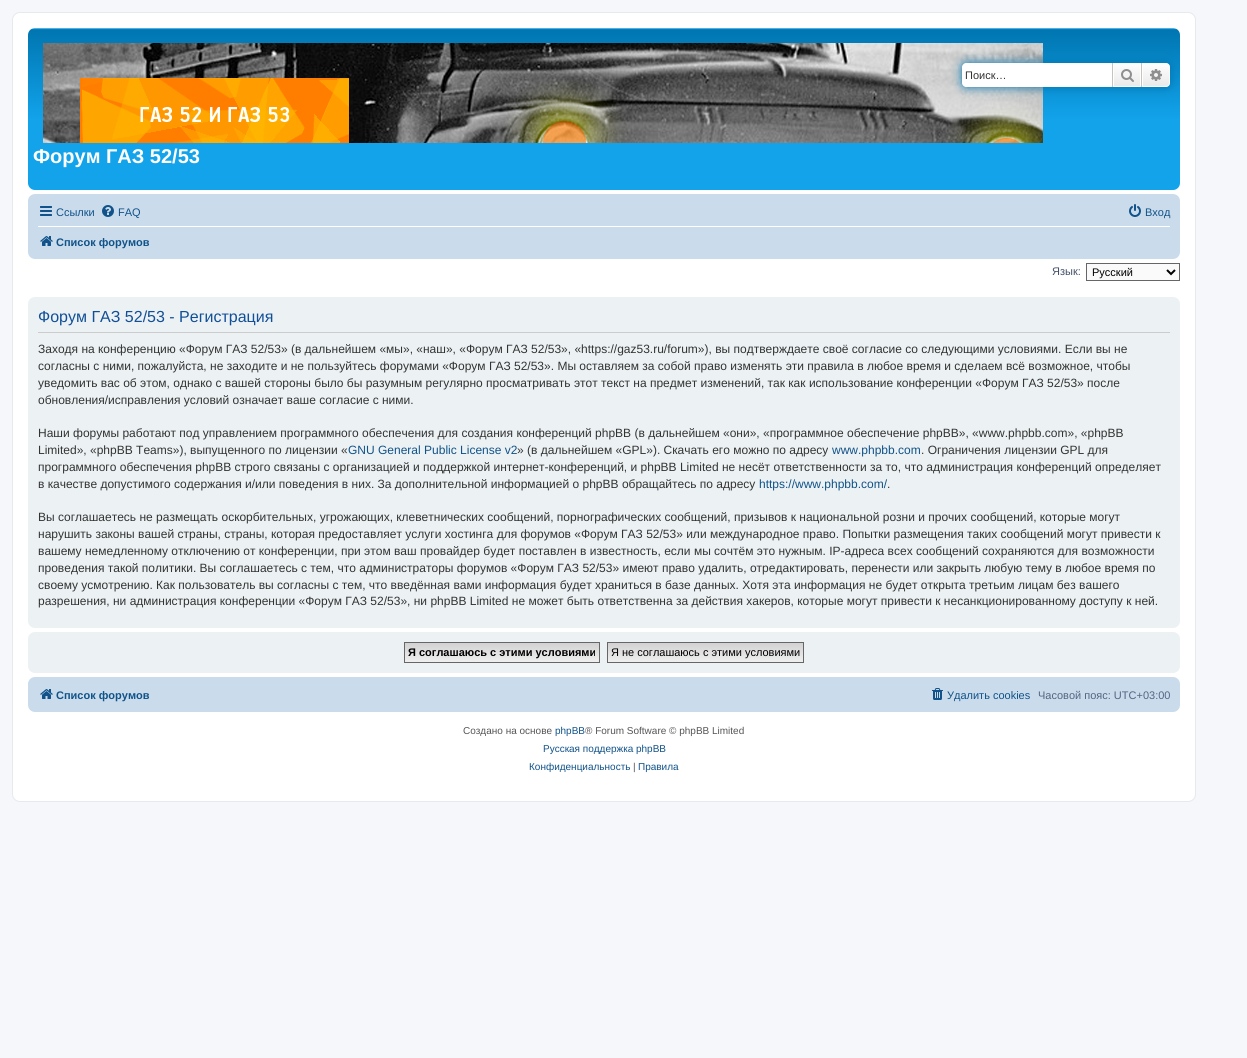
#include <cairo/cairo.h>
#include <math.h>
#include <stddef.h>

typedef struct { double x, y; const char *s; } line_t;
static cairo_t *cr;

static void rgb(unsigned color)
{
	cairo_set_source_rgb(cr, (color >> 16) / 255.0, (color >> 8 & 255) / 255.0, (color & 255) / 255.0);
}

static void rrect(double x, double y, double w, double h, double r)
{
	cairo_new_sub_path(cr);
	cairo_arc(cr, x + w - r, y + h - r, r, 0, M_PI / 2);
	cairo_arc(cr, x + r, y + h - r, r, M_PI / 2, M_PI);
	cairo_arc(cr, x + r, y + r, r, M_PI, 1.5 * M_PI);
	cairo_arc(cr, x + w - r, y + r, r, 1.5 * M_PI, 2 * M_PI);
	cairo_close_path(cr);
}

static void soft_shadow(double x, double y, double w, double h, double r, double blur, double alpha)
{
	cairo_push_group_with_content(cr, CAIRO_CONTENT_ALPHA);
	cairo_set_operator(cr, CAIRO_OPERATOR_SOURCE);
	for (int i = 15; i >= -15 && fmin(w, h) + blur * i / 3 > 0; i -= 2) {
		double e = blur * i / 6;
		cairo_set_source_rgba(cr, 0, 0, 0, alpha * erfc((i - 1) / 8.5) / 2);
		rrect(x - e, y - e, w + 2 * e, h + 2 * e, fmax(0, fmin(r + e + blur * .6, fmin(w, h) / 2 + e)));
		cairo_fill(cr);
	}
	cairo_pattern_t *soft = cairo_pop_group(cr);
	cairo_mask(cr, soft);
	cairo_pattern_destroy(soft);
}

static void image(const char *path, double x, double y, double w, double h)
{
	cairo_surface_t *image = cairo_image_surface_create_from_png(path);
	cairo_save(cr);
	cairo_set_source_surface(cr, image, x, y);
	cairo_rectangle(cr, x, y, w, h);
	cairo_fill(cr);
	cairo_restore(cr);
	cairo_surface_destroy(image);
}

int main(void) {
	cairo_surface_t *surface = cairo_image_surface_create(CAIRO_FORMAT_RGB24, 1247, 1058);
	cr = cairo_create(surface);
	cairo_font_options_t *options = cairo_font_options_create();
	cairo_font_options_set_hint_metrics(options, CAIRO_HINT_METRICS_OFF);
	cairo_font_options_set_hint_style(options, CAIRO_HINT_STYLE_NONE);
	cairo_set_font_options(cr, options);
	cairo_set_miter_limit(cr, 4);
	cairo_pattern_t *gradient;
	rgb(0xf5f7fa);
	cairo_paint(cr);
	rgb(0xffffff);
	rrect(12.5, 12.5, 1183, 789, 7.5);
	cairo_fill_preserve(cr);
	rgb(0xe6e9ed);
	cairo_set_line_width(cr, 1);
	cairo_stroke(cr);
	gradient = cairo_pattern_create_linear(604, 28, 604, 190);
	cairo_pattern_add_color_stop_rgba(gradient, 0, 0.416, 0.808, 1, 1);
	cairo_pattern_add_color_stop_rgba(gradient, 0.01, 0, 0.463, 0.694, 1);
	cairo_pattern_add_color_stop_rgba(gradient, 0.57, 0.071, 0.639, 0.922, 1);
	cairo_pattern_add_color_stop_rgba(gradient, 1, 0.071, 0.639, 0.922, 1);
	cairo_set_source(cr, gradient);
	cairo_pattern_destroy(gradient);
	rrect(28, 28, 1152, 162, 7);
	cairo_fill(cr);
	image("img/3.png", 43, 43, 1000, 100);
	rgb(0x0075b0);
	soft_shadow(962, 63, 208, 24, 4, 5, 1);
	rgb(0xffffff);
	cairo_new_path(cr);
	cairo_move_to(cr, 966, 63);
	cairo_line_to(cr, 1112, 63);
	cairo_line_to(cr, 1112, 87);
	cairo_line_to(cr, 966, 87);
	cairo_curve_to(cr, 964, 87, 962, 85, 962, 83);
	cairo_line_to(cr, 962, 67);
	cairo_curve_to(cr, 962, 65, 964, 63, 966, 63);
	cairo_close_path(cr);
	cairo_fill(cr);
	gradient = cairo_pattern_create_linear(1127, 63, 1127, 87);
	cairo_pattern_add_color_stop_rgba(gradient, 0, 1, 1, 1, 1);
	cairo_pattern_add_color_stop_rgba(gradient, 1, 0.914, 0.914, 0.914, 1);
	cairo_set_source(cr, gradient);
	cairo_pattern_destroy(gradient);
	cairo_rectangle(cr, 1114, 64, 26, 22);
	cairo_fill(cr);
	cairo_rectangle(cr, 1113.5, 63.5, 27, 23);
	rgb(0xffffff);
	cairo_stroke(cr);
	rgb(0xc7c3bf);
	cairo_rectangle(cr, 1141, 63, 1, 24);
	cairo_fill(cr);
	cairo_rectangle(cr, 1112, 63, 1, 24);
	cairo_fill(cr);
	image("img/1.png", 1121, 69, 13, 13);
	gradient = cairo_pattern_create_linear(1156, 63, 1156, 87);
	cairo_pattern_add_color_stop_rgba(gradient, 0, 1, 1, 1, 1);
	cairo_pattern_add_color_stop_rgba(gradient, 1, 0.914, 0.914, 0.914, 1);
	cairo_set_source(cr, gradient);
	cairo_pattern_destroy(gradient);
	cairo_new_path(cr);
	cairo_move_to(cr, 1142.5, 63.5);
	cairo_line_to(cr, 1166, 63.5);
	cairo_curve_to(cr, 1168, 63.5, 1169.5, 65, 1169.5, 67);
	cairo_line_to(cr, 1169.5, 83);
	cairo_curve_to(cr, 1169.5, 85, 1168, 86.5, 1166, 86.5);
	cairo_line_to(cr, 1142.5, 86.5);
	cairo_close_path(cr);
	cairo_fill_preserve(cr);
	rgb(0xffffff);
	cairo_stroke(cr);
	image("img/2.png", 1150, 69, 12, 12);
	rgb(0xcadceb);
	rrect(28, 194, 1152, 65, 7);
	cairo_fill(cr);
	image("img/4.png", 40, 206, 12, 10);
	image("img/5.png", 102, 205, 12, 12);
	image("img/6.png", 1129, 204, 12, 13);
	rgb(0xffffff);
	cairo_rectangle(cr, 38, 226, 1132, 1);
	cairo_fill(cr);
	image("img/7.png", 40, 236, 13, 10);
	rgb(0xfafafa);
	cairo_rectangle(cr, 1086.5, 263.5, 93, 17);
	cairo_fill_preserve(cr);
	rgb(0x666666);
	cairo_stroke(cr);
	cairo_new_path(cr);
	cairo_move_to(cr, 1167, 270);
	cairo_line_to(cr, 1171, 274);
	cairo_line_to(cr, 1175, 270);
	rgb(0x000000);
	cairo_set_line_width(cr, 2);
	cairo_stroke(cr);
	rgb(0xecf1f3);
	rrect(28, 297, 1152, 331, 7);
	cairo_fill(cr);
	rgb(0xcccccc);
	cairo_rectangle(cr, 38, 332, 1132, 1);
	cairo_fill(cr);
	rgb(0xecf1f3);
	rrect(28, 632, 1152, 41, 7);
	cairo_fill(cr);
	gradient = cairo_pattern_create_linear(502, 643, 502, 662);
	cairo_pattern_add_color_stop_rgba(gradient, 0, 0.824, 0.824, 0.824, 1);
	cairo_pattern_add_color_stop_rgba(gradient, 1, 0.937, 0.937, 0.937, 1);
	cairo_set_source(cr, gradient);
	cairo_pattern_destroy(gradient);
	cairo_rectangle(cr, 405, 643, 194, 19);
	cairo_fill(cr);
	cairo_rectangle(cr, 404.5, 642.5, 195, 20);
	rgb(0x666666);
	cairo_set_line_width(cr, 1);
	cairo_stroke(cr);
	gradient = cairo_pattern_create_linear(706, 643, 706, 662);
	cairo_pattern_add_color_stop_rgba(gradient, 0, 0.824, 0.824, 0.824, 1);
	cairo_pattern_add_color_stop_rgba(gradient, 1, 0.937, 0.937, 0.937, 1);
	cairo_set_source(cr, gradient);
	cairo_pattern_destroy(gradient);
	cairo_rectangle(cr, 608, 643, 195, 19);
	cairo_fill(cr);
	cairo_rectangle(cr, 607.5, 642.5, 196, 20);
	rgb(0x666666);
	cairo_stroke(cr);
	rgb(0xcadceb);
	rrect(28, 677, 1152, 35, 7);
	cairo_fill(cr);
	image("img/7.png", 40, 689, 13, 10);
	image("img/8.png", 932, 688, 11, 12);
	cairo_select_font_face(cr, "Liberation Sans", CAIRO_FONT_SLANT_NORMAL, CAIRO_FONT_WEIGHT_NORMAL);
	cairo_set_font_size(cr, 11);
	rgb(0x333333);
	cairo_move_to(cr, 965, 79);
	cairo_show_text(cr, "Поиск…");
	cairo_select_font_face(cr, "Liberation Sans", CAIRO_FONT_SLANT_NORMAL, CAIRO_FONT_WEIGHT_BOLD);
	cairo_set_font_size(cr, 20);
	rgb(0xffffff);
	cairo_move_to(cr, 33, 163);
	cairo_show_text(cr, "Форум ГАЗ 52/53");
	cairo_select_font_face(cr, "Liberation Sans", CAIRO_FONT_SLANT_NORMAL, CAIRO_FONT_WEIGHT_NORMAL);
	cairo_set_font_size(cr, 11);
	rgb(0x105289);
	{
		static const line_t items[] = {
			{56, 216, "Ссылки"},
			{118, 216, "FAQ"},
			{1145, 216, "Вход"},
		};
		for (size_t i = 0; i < sizeof items / sizeof *items; i++) {
			cairo_move_to(cr, items[i].x, items[i].y);
			cairo_show_text(cr, items[i].s);
		}
	}
	cairo_select_font_face(cr, "Liberation Sans", CAIRO_FONT_SLANT_NORMAL, CAIRO_FONT_WEIGHT_BOLD);
	cairo_move_to(cr, 56, 246);
	cairo_show_text(cr, "Список форумов");
	cairo_select_font_face(cr, "Liberation Sans", CAIRO_FONT_SLANT_NORMAL, CAIRO_FONT_WEIGHT_NORMAL);
	rgb(0x425067);
	cairo_move_to(cr, 1052, 275);
	cairo_show_text(cr, "Язык:");
	rgb(0x000000);
	cairo_move_to(cr, 1092, 276);
	cairo_show_text(cr, "Русский");
	cairo_set_font_size(cr, 16);
	rgb(0x115098);
	cairo_move_to(cr, 38, 322);
	cairo_show_text(cr, "Форум ГАЗ 52/53 - Регистрация");
	cairo_set_font_size(cr, 12);
	rgb(0x333333);
	{
		static const line_t items[] = {
			{38, 353, "Заходя на конференцию «Форум ГАЗ 52/53» (в дальнейшем «мы», «наш», «Форум ГАЗ 52/53», «https://gaz53.ru/forum»), вы подтверждаете своё согласие со следующими условиями. Если вы не"},
			{38, 370, "согласны с ними, пожалуйста, не заходите и не пользуйтесь форумами «Форум ГАЗ 52/53». Мы оставляем за собой право изменять эти правила в любое время и сделаем всё возможное, чтобы"},
			{38, 387, "уведомить вас об этом, однако с вашей стороны было бы разумным регулярно просматривать этот текст на предмет изменений, так как использование конференции «Форум ГАЗ 52/53» после"},
			{38, 404, "обновления/исправления условий означает ваше согласие с ними."},
			{38, 437, "Наши форумы работают под управлением программного обеспечения для создания конференций phpBB (в дальнейшем «они», «программное обеспечение phpBB», «www.phpbb.com», «phpBB"},
			{38, 454, "Limited», «phpBB Teams»), выпущенного по лицензии «"},
		};
		for (size_t i = 0; i < sizeof items / sizeof *items; i++) {
			cairo_move_to(cr, items[i].x, items[i].y);
			cairo_show_text(cr, items[i].s);
		}
	}
	rgb(0x105289);
	cairo_move_to(cr, 348, 454);
	cairo_show_text(cr, "GNU General Public License v2");
	rgb(0x333333);
	cairo_move_to(cr, 517, 454);
	cairo_show_text(cr, "» (в дальнейшем «GPL»). Скачать его можно по адресу");
	rgb(0x105289);
	cairo_move_to(cr, 832, 454);
	cairo_show_text(cr, "www.phpbb.com");
	rgb(0x333333);
	{
		static const line_t items[] = {
			{921, 454, ". Ограничения лицензии GPL для"},
			{38, 471, "программного обеспечения phpBB строго связаны с организацией и поддержкой интернет-конференций, и phpBB Limited не несёт ответственности за то, что администрация конференций определяет"},
			{38, 488, "в качестве допустимого содержания и/или поведения в них. За дополнительной информацией о phpBB обращайтесь по адресу"},
		};
		for (size_t i = 0; i < sizeof items / sizeof *items; i++) {
			cairo_move_to(cr, items[i].x, items[i].y);
			cairo_show_text(cr, items[i].s);
		}
	}
	rgb(0x105289);
	cairo_move_to(cr, 759, 488);
	cairo_show_text(cr, "https://www.phpbb.com/");
	rgb(0x333333);
	{
		static const line_t items[] = {
			{887, 488, "."},
			{38, 521, "Вы соглашаетесь не размещать оскорбительных, угрожающих, клеветнических сообщений, порнографических сообщений, призывов к национальной розни и прочих сообщений, которые могут"},
			{38, 538, "нарушить законы вашей страны, страны, которая предоставляет услуги хостинга для форумов «Форум ГАЗ 52/53» или международное право. Попытки размещения таких сообщений могут привести к"},
			{38, 555, "вашему немедленному отключению от конференции, при этом ваш провайдер будет поставлен в известность, если мы сочтём это нужным. IP-адреса всех сообщений сохраняются для возможности"},
			{38, 572, "проведения такой политики. Вы соглашаетесь с тем, что администраторы форумов «Форум ГАЗ 52/53» имеют право удалить, отредактировать, перенести или закрыть любую тему в любое время по"},
			{38, 589, "своему усмотрению. Как пользователь вы согласны с тем, что введённая вами информация будет храниться в базе данных. Хотя эта информация не будет открыта третьим лицам без вашего"},
			{38, 605, "разрешения, ни администрация конференции «Форум ГАЗ 52/53», ни phpBB Limited не может быть ответственна за действия хакеров, которые могут привести к несанкционированному доступу к ней."},
		};
		for (size_t i = 0; i < sizeof items / sizeof *items; i++) {
			cairo_move_to(cr, items[i].x, items[i].y);
			cairo_show_text(cr, items[i].s);
		}
	}
	cairo_select_font_face(cr, "Liberation Sans", CAIRO_FONT_SLANT_NORMAL, CAIRO_FONT_WEIGHT_BOLD);
	cairo_set_font_size(cr, 11);
	rgb(0x000000);
	cairo_move_to(cr, 408, 656);
	cairo_show_text(cr, "Я соглашаюсь с этими условиями");
	cairo_select_font_face(cr, "Liberation Sans", CAIRO_FONT_SLANT_NORMAL, CAIRO_FONT_WEIGHT_NORMAL);
	cairo_move_to(cr, 611, 656);
	cairo_show_text(cr, "Я не соглашаюсь с этими условиями");
	cairo_select_font_face(cr, "Liberation Sans", CAIRO_FONT_SLANT_NORMAL, CAIRO_FONT_WEIGHT_BOLD);
	rgb(0x105289);
	cairo_move_to(cr, 56, 699);
	cairo_show_text(cr, "Список форумов");
	cairo_select_font_face(cr, "Liberation Sans", CAIRO_FONT_SLANT_NORMAL, CAIRO_FONT_WEIGHT_NORMAL);
	cairo_move_to(cr, 947, 699);
	cairo_show_text(cr, "Удалить cookies");
	rgb(0x536482);
	cairo_move_to(cr, 1038, 699);
	cairo_show_text(cr, "Часовой пояс: UTC+03:00");
	cairo_set_font_size(cr, 10);
	rgb(0x555555);
	cairo_move_to(cr, 463, 734);
	cairo_show_text(cr, "Создано на основе");
	rgb(0x105289);
	cairo_move_to(cr, 555, 734);
	cairo_show_text(cr, "phpBB");
	rgb(0x555555);
	cairo_move_to(cr, 585, 734);
	cairo_show_text(cr, "® Forum Software © phpBB Limited");
	rgb(0x105289);
	cairo_move_to(cr, 543, 752);
	cairo_show_text(cr, "Русская поддержка phpBB");
	cairo_move_to(cr, 529, 770);
	cairo_show_text(cr, "Конфиденциальность");
	rgb(0x555555);
	cairo_move_to(cr, 633, 770);
	cairo_show_text(cr, "|");
	rgb(0x105289);
	cairo_move_to(cr, 638, 770);
	cairo_show_text(cr, "Правила");
	cairo_surface_write_to_png(surface, "page.png");
	cairo_font_options_destroy(options);
	cairo_destroy(cr);
	cairo_surface_destroy(surface);
	return 0;
}
